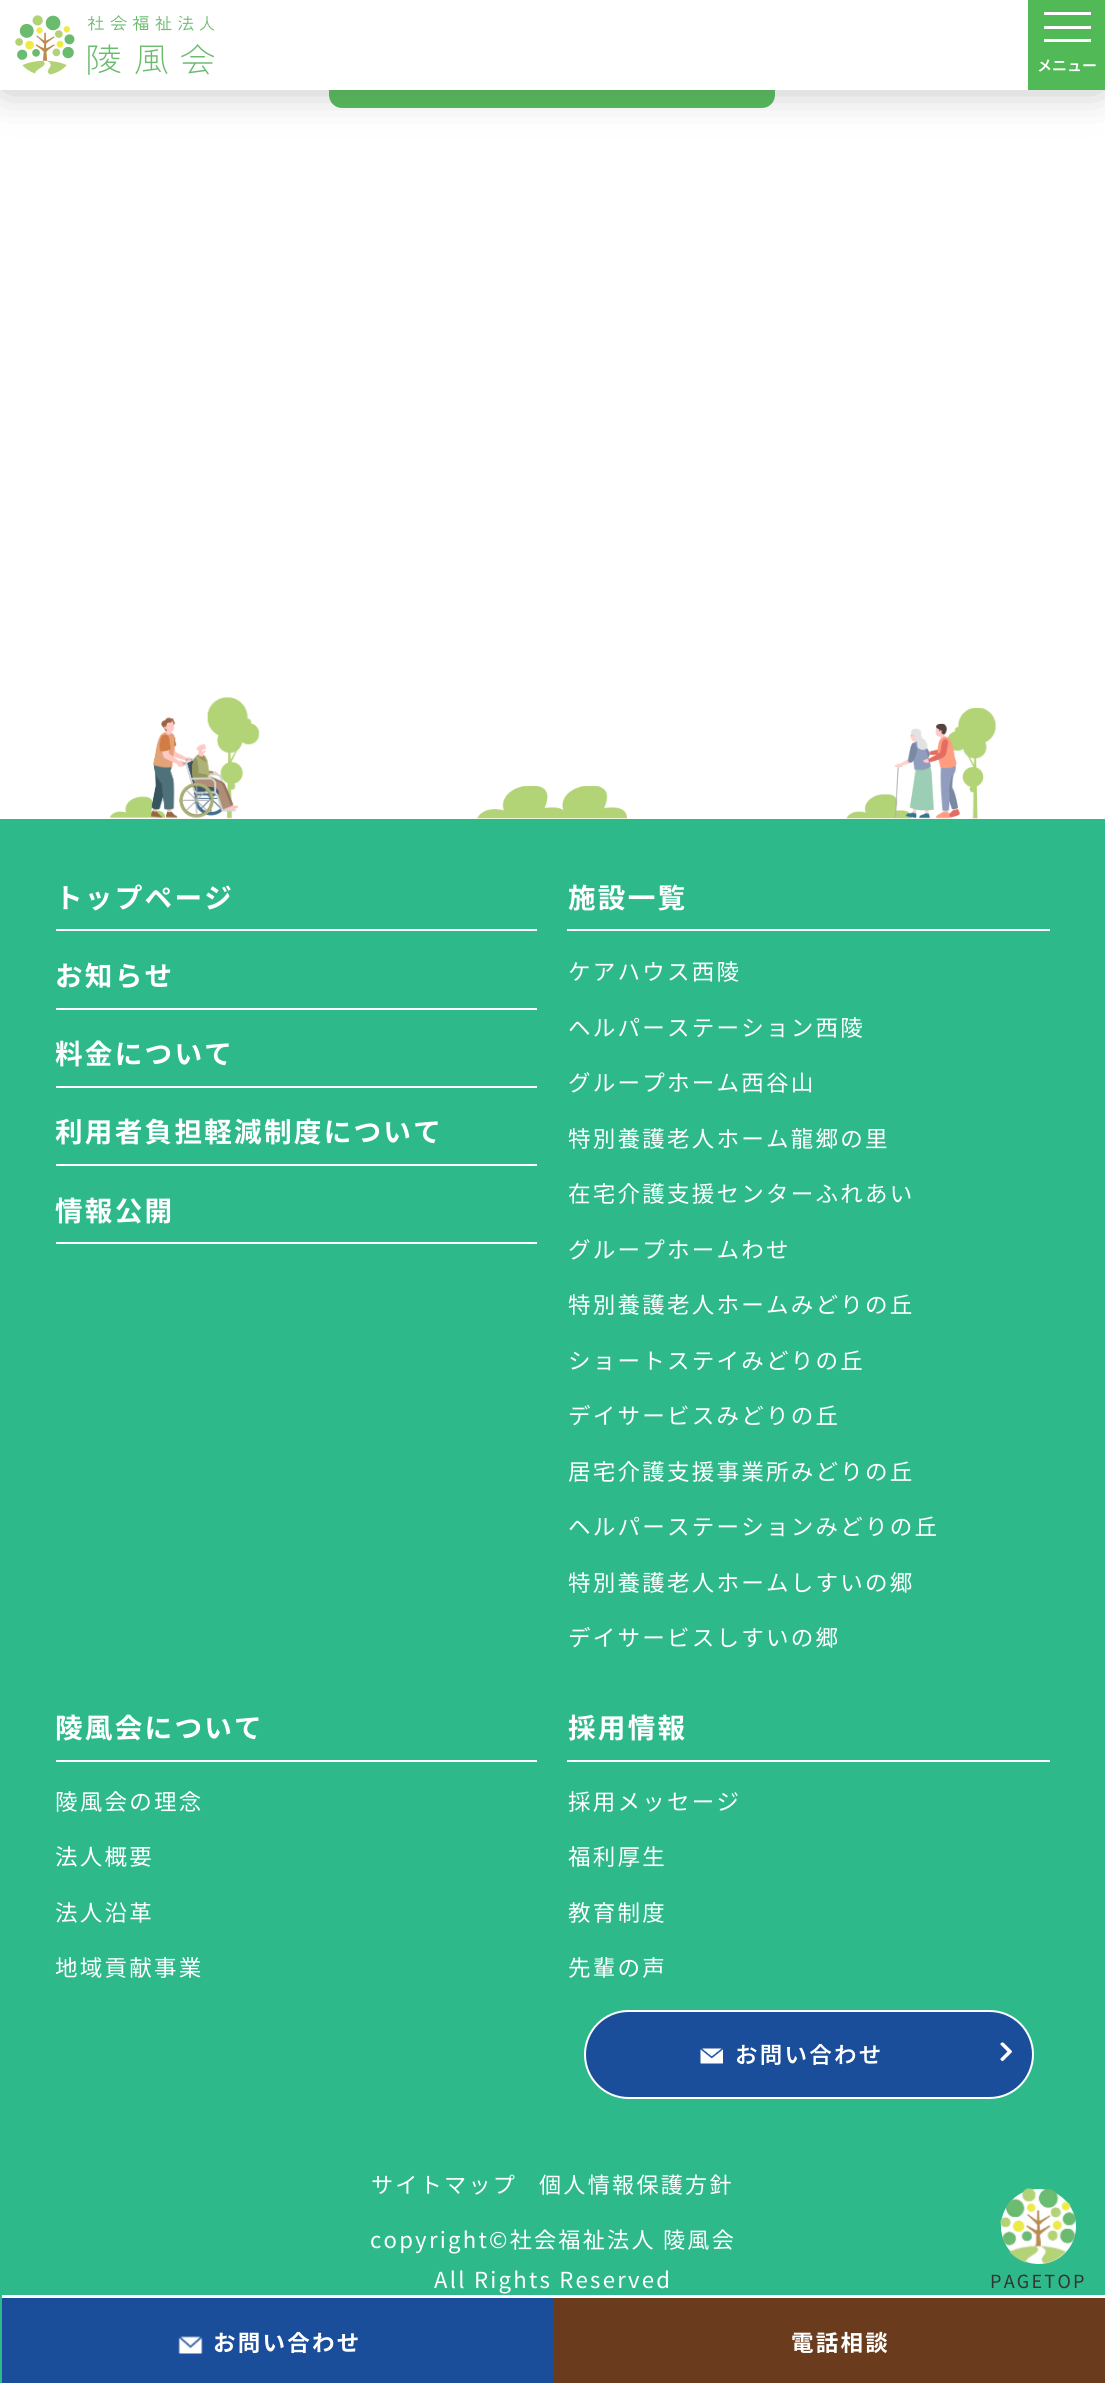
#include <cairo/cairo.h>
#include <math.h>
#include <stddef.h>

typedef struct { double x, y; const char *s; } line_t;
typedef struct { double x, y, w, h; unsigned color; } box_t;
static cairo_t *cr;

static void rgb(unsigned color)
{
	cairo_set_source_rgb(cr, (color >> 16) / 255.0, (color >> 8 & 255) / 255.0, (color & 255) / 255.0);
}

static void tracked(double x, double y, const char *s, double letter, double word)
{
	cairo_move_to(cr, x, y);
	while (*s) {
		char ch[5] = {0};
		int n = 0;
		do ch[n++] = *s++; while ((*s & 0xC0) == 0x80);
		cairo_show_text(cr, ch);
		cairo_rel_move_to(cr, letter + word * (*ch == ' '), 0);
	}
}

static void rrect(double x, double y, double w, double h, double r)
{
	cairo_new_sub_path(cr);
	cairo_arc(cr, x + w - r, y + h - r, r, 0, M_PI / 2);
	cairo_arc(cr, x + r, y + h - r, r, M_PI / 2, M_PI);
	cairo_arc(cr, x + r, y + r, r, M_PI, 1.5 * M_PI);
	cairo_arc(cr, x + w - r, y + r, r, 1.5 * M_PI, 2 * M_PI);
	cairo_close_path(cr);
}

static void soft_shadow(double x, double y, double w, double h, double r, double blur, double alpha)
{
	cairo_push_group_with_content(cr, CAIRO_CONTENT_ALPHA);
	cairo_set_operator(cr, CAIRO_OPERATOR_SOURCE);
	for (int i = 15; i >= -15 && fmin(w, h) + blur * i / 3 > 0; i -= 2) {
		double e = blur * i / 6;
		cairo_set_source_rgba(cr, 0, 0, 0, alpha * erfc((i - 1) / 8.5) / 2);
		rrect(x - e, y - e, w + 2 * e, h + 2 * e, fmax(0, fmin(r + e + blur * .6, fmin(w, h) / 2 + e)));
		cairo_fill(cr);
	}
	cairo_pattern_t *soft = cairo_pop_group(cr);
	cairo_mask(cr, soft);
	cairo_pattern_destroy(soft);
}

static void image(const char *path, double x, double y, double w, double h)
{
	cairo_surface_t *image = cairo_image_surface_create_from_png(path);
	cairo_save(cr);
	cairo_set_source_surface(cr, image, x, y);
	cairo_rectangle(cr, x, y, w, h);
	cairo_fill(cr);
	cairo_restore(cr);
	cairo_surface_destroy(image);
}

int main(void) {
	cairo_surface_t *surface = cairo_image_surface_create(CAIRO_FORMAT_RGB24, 1105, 2383);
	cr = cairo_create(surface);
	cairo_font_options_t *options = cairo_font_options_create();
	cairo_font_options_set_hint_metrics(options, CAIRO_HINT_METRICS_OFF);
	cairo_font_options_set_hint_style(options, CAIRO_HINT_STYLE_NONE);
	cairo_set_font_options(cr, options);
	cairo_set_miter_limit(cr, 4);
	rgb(0xffffff);
	cairo_paint(cr);
	rgb(0x51ba56);
	rrect(328, 22, 448, 87, 14);
	cairo_fill_preserve(cr);
	rgb(0xffffff);
	cairo_stroke(cr);
	rgb(0x666666);
	soft_shadow(5, 5, 1096, 81, 0, 21, 0.5);
	rgb(0xffffff);
	cairo_rectangle(cr, 0, 0, 1028, 90);
	cairo_fill(cr);
	image("img/1.png", 15, 15, 200, 60);
	{
		static const box_t items[] = {
			{1028, 0, 77, 90, 0x51ba56},
			{1044, 12, 47, 3, 0xffffff},
			{1044, 26, 47, 3, 0xffffff},
			{1044, 39, 47, 3, 0xffffff},
			{0, 819, 1105, 1564, 0x2eb98a},
		};
		for (size_t i = 0; i < sizeof items / sizeof *items; i++) {
			rgb(items[i].color);
			cairo_rectangle(cr, items[i].x, items[i].y, items[i].w, items[i].h);
			cairo_fill(cr);
		}
	}
	image("img/2.png", 110, 697, 150, 122);
	image("img/3.png", 477, 786, 150, 33);
	image("img/4.png", 846, 708, 150, 111);
	{
		static const box_t items[] = {
			{56, 929, 481, 2, 0xffffff},
			{56, 1008, 481, 2, 0xffffff},
			{56, 1086, 481, 2, 0xffffff},
			{56, 1164, 481, 2, 0xffffff},
			{56, 1242, 481, 2, 0xffffff},
			{567, 929, 483, 2, 0xffffff},
			{56, 1760, 481, 2, 0xffffff},
			{567, 1760, 483, 2, 0xffffff},
		};
		for (size_t i = 0; i < sizeof items / sizeof *items; i++) {
			rgb(items[i].color);
			cairo_rectangle(cr, items[i].x, items[i].y, items[i].w, items[i].h);
			cairo_fill(cr);
		}
	}
	rgb(0x1a4e9a);
	rrect(585, 2011, 448, 87, 43.5);
	cairo_fill_preserve(cr);
	rgb(0xffffff);
	cairo_stroke(cr);
	image("img/5.png", 700, 2048, 23, 16);
	image("img/6.png", 1000, 2042, 12, 20);
	cairo_arc(cr, 1038.5, 2226.5, 37.5, 0, 2 * M_PI);
	cairo_fill(cr);
	image("img/7.png", 1000, 2188, 76, 76);
	cairo_rectangle(cr, 2, 2295, 1103, 3);
	cairo_fill(cr);
	rgb(0x1a4e9a);
	cairo_rectangle(cr, 2, 2298, 552, 85);
	cairo_fill(cr);
	image("img/8.png", 178, 2336, 25, 18);
	rgb(0x6a3c1d);
	cairo_rectangle(cr, 554, 2298, 551, 85);
	cairo_fill(cr);
	cairo_select_font_face(cr, "Noto Sans JP SemiBold", CAIRO_FONT_SLANT_NORMAL, CAIRO_FONT_WEIGHT_NORMAL);
	cairo_set_font_size(cr, 15);
	rgb(0xffffff);
	cairo_move_to(cr, 1037, 71);
	cairo_show_text(cr, "メニュー");
	cairo_select_font_face(cr, "Noto Sans JP", CAIRO_FONT_SLANT_NORMAL, CAIRO_FONT_WEIGHT_BOLD);
	cairo_set_font_size(cr, 27.6);
	{
		static const line_t items[] = {
			{55, 908, "トップページ"},
			{55, 986, "お知らせ"},
			{55, 1064, "料金について"},
			{55, 1142, "利用者負担軽減制度について"},
			{55, 1221, "情報公開"},
			{568, 908, "施設一覧"},
		};
		for (size_t i = 0; i < sizeof items / sizeof *items; i++) {
			tracked(items[i].x, items[i].y, items[i].s, 2.25, 0);
		}
	}
	cairo_select_font_face(cr, "Noto Sans JP", CAIRO_FONT_SLANT_NORMAL, CAIRO_FONT_WEIGHT_NORMAL);
	cairo_set_font_size(cr, 22.5);
	{
		static const line_t items[] = {
			{568, 980, "ケアハウス西陵"},
			{568, 1036, "ヘルパーステーション西陵"},
			{568, 1091, "グループホーム西谷山"},
			{568, 1147, "特別養護老人ホーム龍郷の里"},
			{568, 1202, "在宅介護支援センターふれあい"},
			{568, 1258, "グループホームわせ"},
			{568, 1313, "特別養護老人ホームみどりの丘"},
			{568, 1369, "ショートステイみどりの丘"},
			{568, 1424, "デイサービスみどりの丘"},
			{568, 1480, "居宅介護支援事業所みどりの丘"},
			{568, 1535, "ヘルパーステーションみどりの丘"},
			{568, 1591, "特別養護老人ホームしすいの郷"},
			{568, 1646, "デイサービスしすいの郷"},
		};
		for (size_t i = 0; i < sizeof items / sizeof *items; i++) {
			tracked(items[i].x, items[i].y, items[i].s, 2.25, 0);
		}
	}
	cairo_select_font_face(cr, "Noto Sans JP", CAIRO_FONT_SLANT_NORMAL, CAIRO_FONT_WEIGHT_BOLD);
	cairo_set_font_size(cr, 27.6);
	tracked(55, 1738, "陵風会について", 2.25, 0);
	cairo_select_font_face(cr, "Noto Sans JP", CAIRO_FONT_SLANT_NORMAL, CAIRO_FONT_WEIGHT_NORMAL);
	cairo_set_font_size(cr, 22.5);
	{
		static const line_t items[] = {
			{55, 1810, "陵風会の理念"},
			{55, 1865, "法人概要"},
			{55, 1921, "法人沿革"},
			{55, 1976, "地域貢献事業"},
		};
		for (size_t i = 0; i < sizeof items / sizeof *items; i++) {
			tracked(items[i].x, items[i].y, items[i].s, 2.25, 0);
		}
	}
	cairo_select_font_face(cr, "Noto Sans JP", CAIRO_FONT_SLANT_NORMAL, CAIRO_FONT_WEIGHT_BOLD);
	cairo_set_font_size(cr, 27.6);
	tracked(568, 1738, "採用情報", 2.25, 0);
	cairo_select_font_face(cr, "Noto Sans JP", CAIRO_FONT_SLANT_NORMAL, CAIRO_FONT_WEIGHT_NORMAL);
	cairo_set_font_size(cr, 22.5);
	{
		static const line_t items[] = {
			{568, 1810, "採用メッセージ"},
			{568, 1865, "福利厚生"},
			{568, 1921, "教育制度"},
			{568, 1976, "先輩の声"},
		};
		for (size_t i = 0; i < sizeof items / sizeof *items; i++) {
			tracked(items[i].x, items[i].y, items[i].s, 2.25, 0);
		}
	}
	cairo_select_font_face(cr, "Noto Sans JP SemiBold", CAIRO_FONT_SLANT_NORMAL, CAIRO_FONT_WEIGHT_NORMAL);
	tracked(735, 2063, "お問い合わせ", 2.25, 0);
	cairo_select_font_face(cr, "Noto Sans JP", CAIRO_FONT_SLANT_NORMAL, CAIRO_FONT_WEIGHT_NORMAL);
	cairo_set_font_size(cr, 22.1);
	{
		static const line_t items[] = {
			{371, 2193, "サイトマップ"},
			{539, 2193, "個人情報保護方針"},
			{370, 2248, "copyright©社会福祉法人 陵風会"},
			{434, 2288, "All Rights Reserved"},
		};
		for (size_t i = 0; i < sizeof items / sizeof *items; i++) {
			tracked(items[i].x, items[i].y, items[i].s, 2.25, 0);
		}
	}
	cairo_set_font_size(cr, 18);
	rgb(0x333333);
	tracked(990, 2288, "PAGETOP", 2.25, 0);
	cairo_select_font_face(cr, "Noto Sans JP", CAIRO_FONT_SLANT_NORMAL, CAIRO_FONT_WEIGHT_BOLD);
	cairo_set_font_size(cr, 22.5);
	rgb(0xffffff);
	tracked(213, 2351, "お問い合わせ", 2.25, 0);
	tracked(791, 2351, "電話相談", 2.25, 0);
	cairo_surface_write_to_png(surface, "page.png");
	cairo_font_options_destroy(options);
	cairo_destroy(cr);
	cairo_surface_destroy(surface);
	return 0;
}
